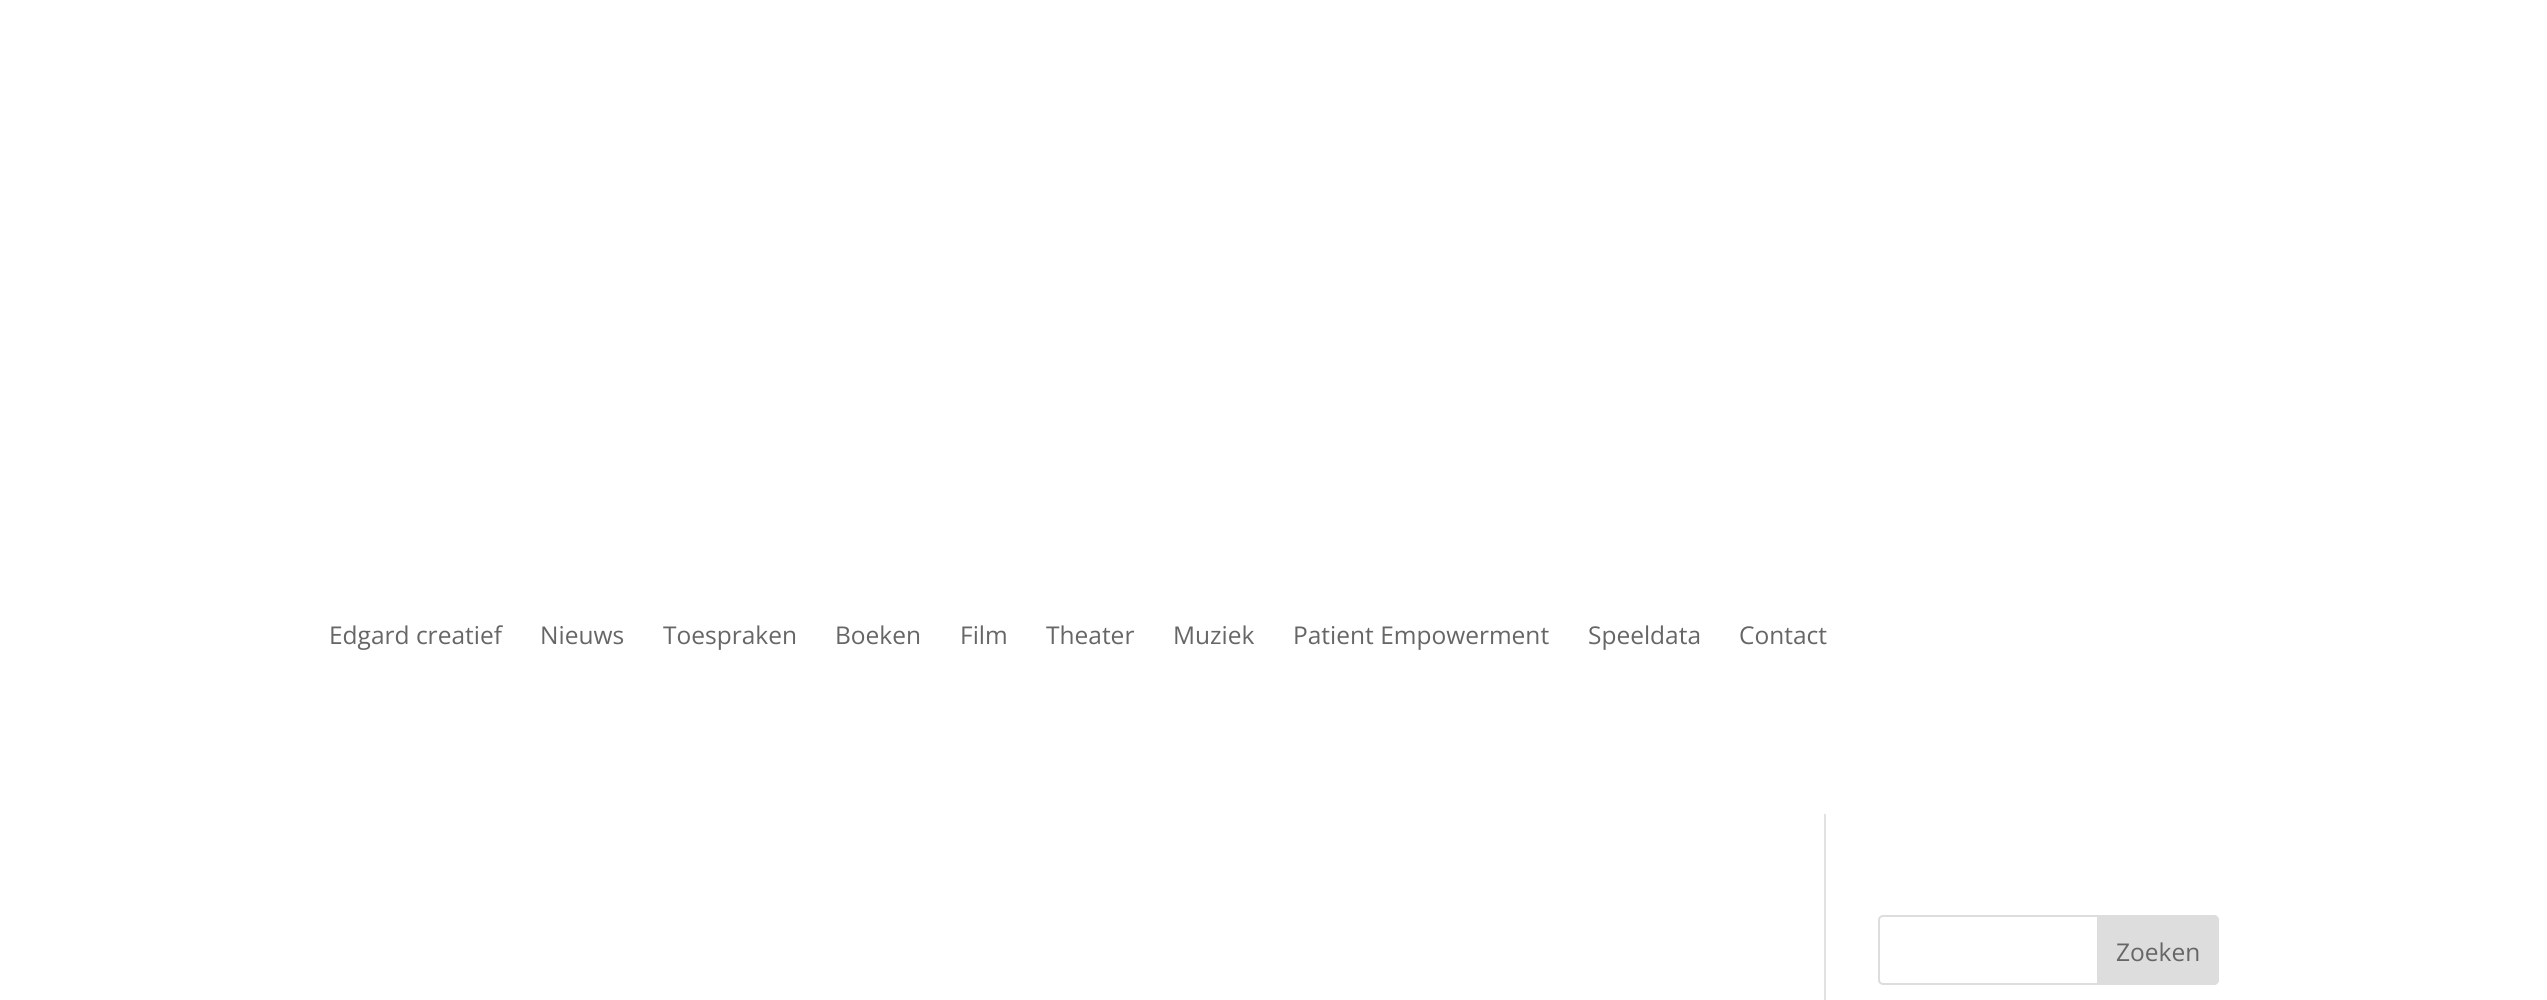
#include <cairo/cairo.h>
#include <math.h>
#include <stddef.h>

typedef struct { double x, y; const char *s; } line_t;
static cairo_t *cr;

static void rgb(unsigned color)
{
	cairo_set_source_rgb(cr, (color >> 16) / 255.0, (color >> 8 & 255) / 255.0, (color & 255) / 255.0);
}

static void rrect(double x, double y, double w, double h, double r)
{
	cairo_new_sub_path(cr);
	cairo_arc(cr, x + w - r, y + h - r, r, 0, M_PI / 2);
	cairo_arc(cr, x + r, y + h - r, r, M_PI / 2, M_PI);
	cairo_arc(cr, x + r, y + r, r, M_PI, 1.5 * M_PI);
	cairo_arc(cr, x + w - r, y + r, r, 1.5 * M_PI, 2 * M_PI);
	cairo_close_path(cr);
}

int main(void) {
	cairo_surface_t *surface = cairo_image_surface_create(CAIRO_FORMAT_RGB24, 2547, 1000);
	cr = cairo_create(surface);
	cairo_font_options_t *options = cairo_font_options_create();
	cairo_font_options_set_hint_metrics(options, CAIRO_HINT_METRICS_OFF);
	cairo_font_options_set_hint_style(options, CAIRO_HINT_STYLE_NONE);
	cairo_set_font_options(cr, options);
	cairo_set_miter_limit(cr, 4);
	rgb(0xffffff);
	cairo_paint(cr);
	rgb(0xe2e2e2);
	cairo_rectangle(cr, 1824, 814, 2, 186);
	cairo_fill(cr);
	rrect(1879, 916, 339, 68, 4);
	rgb(0xdddddd);
	cairo_stroke(cr);
	cairo_new_path(cr);
	cairo_move_to(cr, 2098, 916);
	cairo_line_to(cr, 2214, 916);
	cairo_curve_to(cr, 2216, 916, 2218, 918, 2218, 920);
	cairo_line_to(cr, 2218, 980);
	cairo_curve_to(cr, 2218, 982, 2216, 984, 2214, 984);
	cairo_line_to(cr, 2098, 984);
	cairo_close_path(cr);
	cairo_fill_preserve(cr);
	cairo_stroke(cr);
	cairo_select_font_face(cr, "Open Sans", CAIRO_FONT_SLANT_NORMAL, CAIRO_FONT_WEIGHT_NORMAL);
	cairo_set_font_size(cr, 24.5);
	rgb(0x666666);
	{
		static const line_t items[] = {
			{329, 644, "Edgard creatief"},
			{540, 644, "Nieuws"},
			{663, 644, "Toespraken"},
			{835, 644, "Boeken"},
			{960, 644, "Film"},
			{1046, 644, "Theater"},
			{1173, 644, "Muziek"},
			{1293, 644, "Patient Empowerment"},
			{1588, 644, "Speeldata"},
			{1739, 644, "Contact"},
			{2116, 961, "Zoeken"},
		};
		for (size_t i = 0; i < sizeof items / sizeof *items; i++) {
			cairo_move_to(cr, items[i].x, items[i].y);
			cairo_show_text(cr, items[i].s);
		}
	}
	cairo_surface_write_to_png(surface, "page.png");
	cairo_font_options_destroy(options);
	cairo_destroy(cr);
	cairo_surface_destroy(surface);
	return 0;
}
